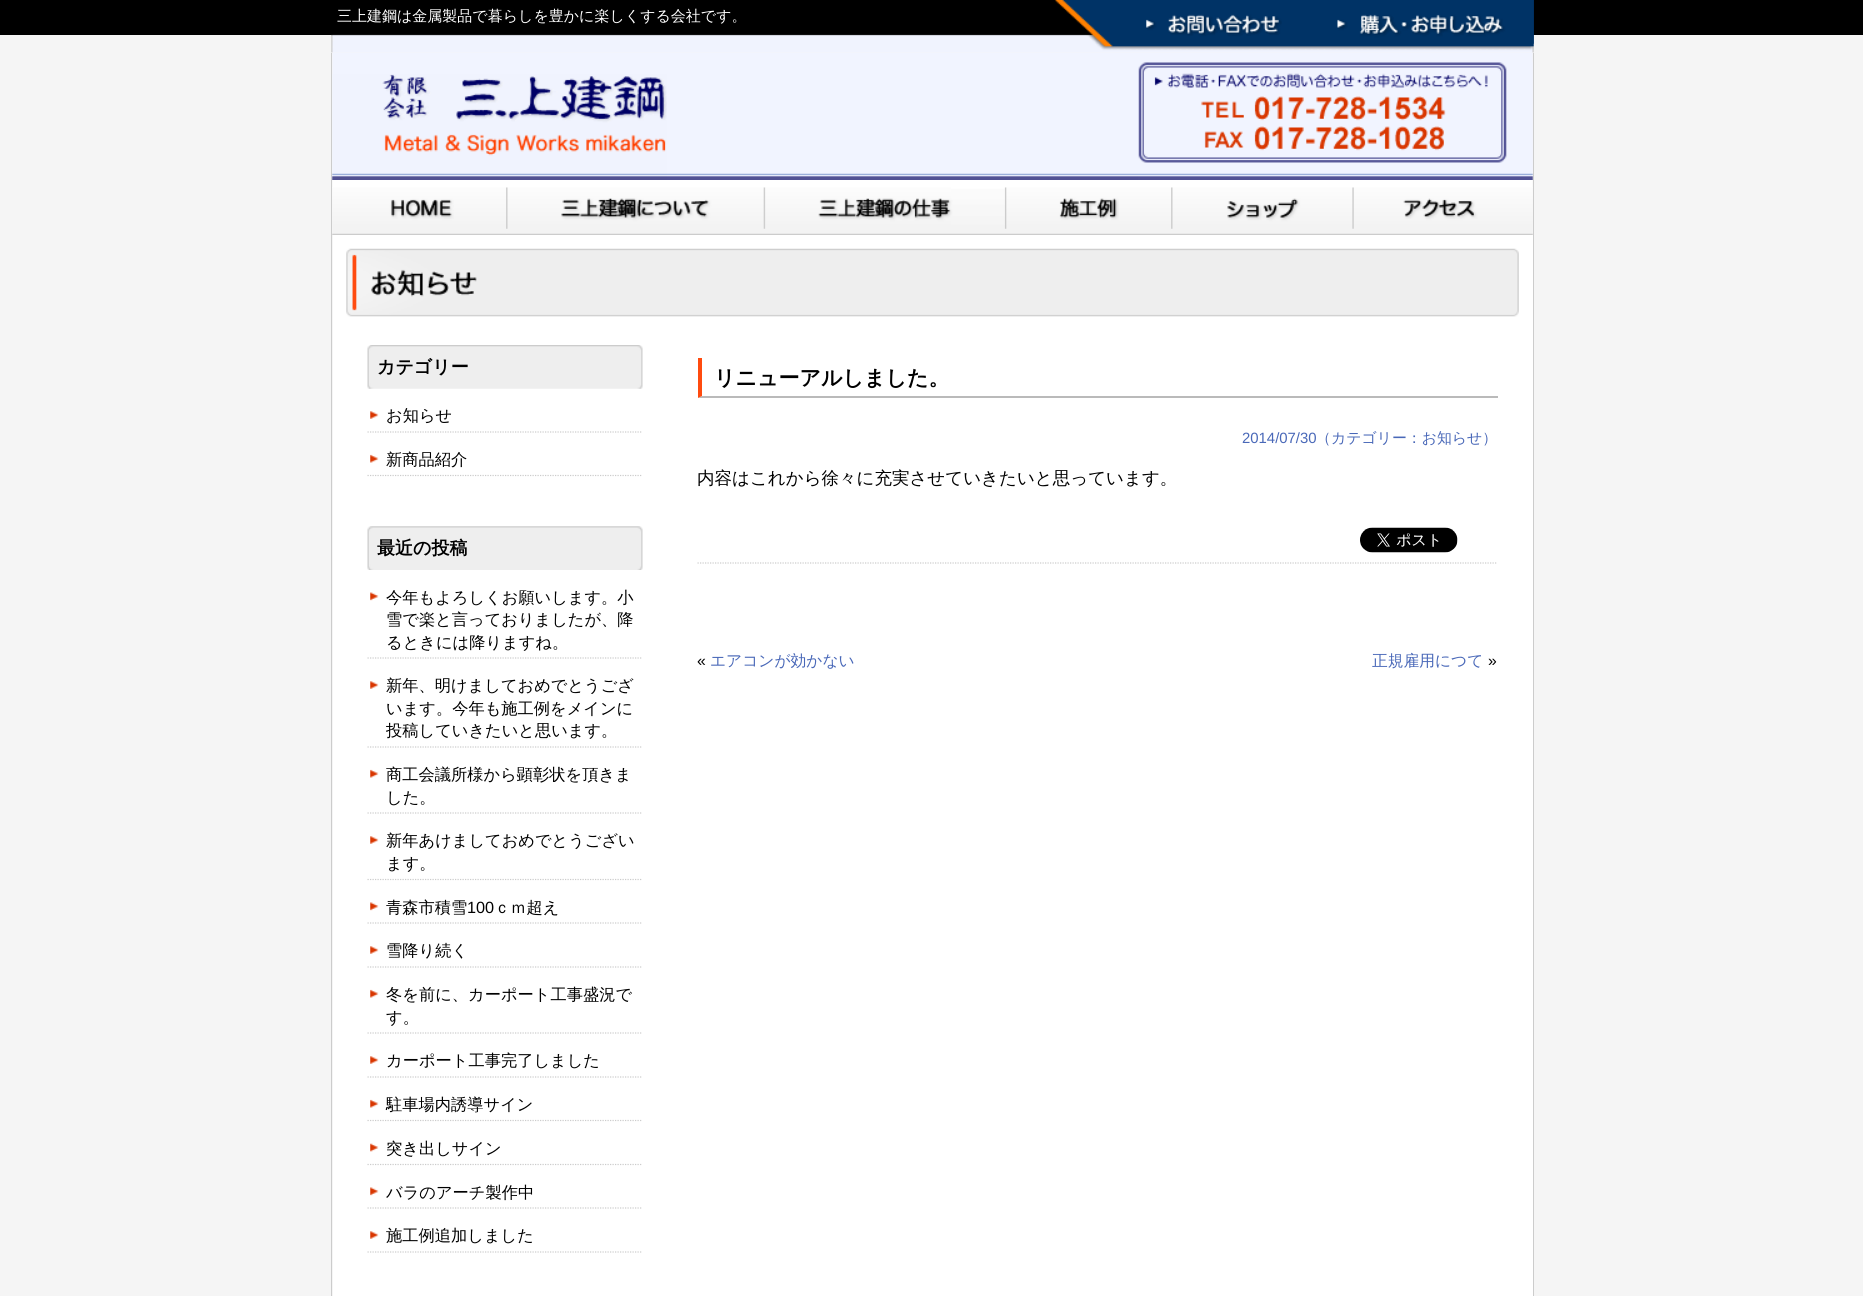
#include <cairo/cairo.h>
#include <math.h>
#include <stddef.h>

typedef struct { double x, y; const char *s; } line_t;
static cairo_t *cr;

static void rgb(unsigned color)
{
	cairo_set_source_rgb(cr, (color >> 16) / 255.0, (color >> 8 & 255) / 255.0, (color & 255) / 255.0);
}

static void image(const char *path, double x, double y, double w, double h)
{
	cairo_surface_t *image = cairo_image_surface_create_from_png(path);
	cairo_save(cr);
	cairo_set_source_surface(cr, image, x, y);
	cairo_rectangle(cr, x, y, w, h);
	cairo_fill(cr);
	cairo_restore(cr);
	cairo_surface_destroy(image);
}

int main(void) {
	cairo_surface_t *surface = cairo_image_surface_create(CAIRO_FORMAT_RGB24, 1863, 1296);
	cr = cairo_create(surface);
	cairo_font_options_t *options = cairo_font_options_create();
	cairo_font_options_set_hint_metrics(options, CAIRO_HINT_METRICS_OFF);
	cairo_font_options_set_hint_style(options, CAIRO_HINT_STYLE_NONE);
	cairo_set_font_options(cr, options);
	cairo_set_miter_limit(cr, 4);
	rgb(0xf5f5f5);
	cairo_paint(cr);
	rgb(0x000000);
	cairo_rectangle(cr, 0, 0, 1863, 35);
	cairo_fill(cr);
	image("img/1.png", 331, 0, 1203, 53);
	image("img/2.png", 1146, 14, 136, 22);
	image("img/3.png", 1337, 0, 197, 44);
	rgb(0xcccccc);
	cairo_rectangle(cr, 1533, 53, 1, 1243);
	cairo_fill(cr);
	cairo_rectangle(cr, 331, 53, 1, 1243);
	cairo_fill(cr);
	image("img/4.png", 332, 52, 1201, 128);
	image("img/5.png", 332, 74, 335, 106);
	image("img/6.png", 1138, 62, 395, 118);
	image("img/7.png", 332, 180, 1201, 55);
	image("img/8.png", 332, 187, 175, 48);
	image("img/9.png", 506, 187, 258, 42);
	image("img/10.png", 763, 187, 188, 42);
	image("img/11.png", 1005, 187, 167, 42);
	image("img/12.png", 1171, 187, 182, 42);
	image("img/13.png", 1352, 187, 181, 48);
	rgb(0xffffff);
	cairo_rectangle(cr, 333, 235, 1200, 1061);
	cairo_fill(cr);
	image("img/14.png", 346, 248, 1173, 69);
	image("img/15.png", 367, 345, 276, 44);
	image("img/16.png", 370, 411, 9, 8);
	cairo_new_path(cr);
	cairo_move_to(cr, 367.5, 432);
	cairo_line_to(cr, 642.5, 432);
	rgb(0xcccccc);
	cairo_set_line_width(cr, 1.2);
	cairo_set_dash(cr, (double[]){1.25, 1.25}, 2, 0);
	cairo_stroke(cr);
	image("img/17.png", 370, 454, 9, 9);
	cairo_new_path(cr);
	cairo_move_to(cr, 367.5, 475.5);
	cairo_line_to(cr, 642.5, 475.5);
	cairo_stroke(cr);
	image("img/18.png", 367, 526, 276, 44);
	image("img/19.png", 370, 592, 9, 9);
	cairo_new_path(cr);
	cairo_move_to(cr, 367.5, 658);
	cairo_line_to(cr, 642.5, 658);
	cairo_stroke(cr);
	image("img/16.png", 370, 681, 9, 8);
	cairo_new_path(cr);
	cairo_move_to(cr, 367.5, 747);
	cairo_line_to(cr, 642.5, 747);
	cairo_stroke(cr);
	image("img/17.png", 370, 769, 9, 9);
	cairo_new_path(cr);
	cairo_move_to(cr, 367.5, 813);
	cairo_line_to(cr, 642.5, 813);
	cairo_stroke(cr);
	image("img/16.png", 370, 836, 9, 8);
	cairo_new_path(cr);
	cairo_move_to(cr, 367.5, 879.5);
	cairo_line_to(cr, 642.5, 879.5);
	cairo_stroke(cr);
	image("img/20.png", 370, 902, 9, 9);
	cairo_new_path(cr);
	cairo_move_to(cr, 367.5, 923);
	cairo_line_to(cr, 642.5, 923);
	cairo_stroke(cr);
	image("img/16.png", 370, 946, 9, 8);
	cairo_new_path(cr);
	cairo_move_to(cr, 367.5, 967);
	cairo_line_to(cr, 642.5, 967);
	cairo_stroke(cr);
	image("img/17.png", 370, 989, 9, 9);
	cairo_new_path(cr);
	cairo_move_to(cr, 367.5, 1033);
	cairo_line_to(cr, 642.5, 1033);
	cairo_stroke(cr);
	image("img/16.png", 370, 1056, 9, 8);
	cairo_new_path(cr);
	cairo_move_to(cr, 367.5, 1077);
	cairo_line_to(cr, 642.5, 1077);
	cairo_stroke(cr);
	image("img/17.png", 370, 1099, 9, 9);
	cairo_new_path(cr);
	cairo_move_to(cr, 367.5, 1120.5);
	cairo_line_to(cr, 642.5, 1120.5);
	cairo_stroke(cr);
	image("img/21.png", 370, 1143, 9, 9);
	cairo_new_path(cr);
	cairo_move_to(cr, 367.5, 1164.5);
	cairo_line_to(cr, 642.5, 1164.5);
	cairo_stroke(cr);
	image("img/20.png", 370, 1187, 9, 9);
	cairo_new_path(cr);
	cairo_move_to(cr, 367.5, 1208);
	cairo_line_to(cr, 642.5, 1208);
	cairo_stroke(cr);
	image("img/16.png", 370, 1231, 9, 8);
	cairo_new_path(cr);
	cairo_move_to(cr, 367.5, 1252);
	cairo_line_to(cr, 642.5, 1252);
	cairo_stroke(cr);
	cairo_new_path(cr);
	cairo_move_to(cr, 697.5, 563);
	cairo_line_to(cr, 1497.5, 563);
	cairo_stroke(cr);
	rgb(0xbababa);
	cairo_new_path(cr);
	cairo_move_to(cr, 1498, 398);
	cairo_line_to(cr, 698, 398);
	cairo_line_to(cr, 702, 396);
	cairo_line_to(cr, 1498, 396);
	cairo_close_path(cr);
	cairo_fill(cr);
	rgb(0xff4b0f);
	cairo_new_path(cr);
	cairo_move_to(cr, 698, 398);
	cairo_line_to(cr, 698, 358);
	cairo_line_to(cr, 702, 358);
	cairo_line_to(cr, 702, 396);
	cairo_close_path(cr);
	cairo_fill(cr);
	image("img/22.png", 1360, 527, 98, 26);
	cairo_select_font_face(cr, "WenQuanYi Zen Hei Medium", CAIRO_FONT_SLANT_NORMAL, CAIRO_FONT_WEIGHT_NORMAL);
	cairo_set_font_size(cr, 15);
	rgb(0xffffff);
	cairo_move_to(cr, 337, 21);
	cairo_show_text(cr, "三上建鋼は金属製品で暮らしを豊かに楽しくする会社です。");
	cairo_select_font_face(cr, "WenQuanYi Zen Hei", CAIRO_FONT_SLANT_NORMAL, CAIRO_FONT_WEIGHT_BOLD);
	cairo_set_font_size(cr, 18);
	rgb(0x000000);
	cairo_move_to(cr, 377, 373);
	cairo_show_text(cr, "カテゴリー");
	cairo_select_font_face(cr, "WenQuanYi Zen Hei Medium", CAIRO_FONT_SLANT_NORMAL, CAIRO_FONT_WEIGHT_NORMAL);
	cairo_set_font_size(cr, 16.25);
	cairo_move_to(cr, 386, 421);
	cairo_show_text(cr, "お知らせ");
	cairo_move_to(cr, 386, 465);
	cairo_show_text(cr, "新商品紹介");
	cairo_select_font_face(cr, "WenQuanYi Zen Hei", CAIRO_FONT_SLANT_NORMAL, CAIRO_FONT_WEIGHT_BOLD);
	cairo_set_font_size(cr, 18);
	cairo_move_to(cr, 377, 554);
	cairo_show_text(cr, "最近の投稿");
	cairo_select_font_face(cr, "WenQuanYi Zen Hei Medium", CAIRO_FONT_SLANT_NORMAL, CAIRO_FONT_WEIGHT_NORMAL);
	cairo_set_font_size(cr, 16.25);
	{
		static const line_t items[] = {
			{386, 603, "今年もよろしくお願いします。小"},
			{386, 625, "雪で楽と言っておりましたが、降"},
			{386, 648, "るときには降りますね。"},
			{386, 691, "新年、明けましておめでとうござ"},
			{386, 714, "います。今年も施工例をメインに"},
			{386, 736, "投稿していきたいと思います。"},
			{386, 780, "商工会議所様から顕彰状を頂きま"},
			{386, 803, "した。"},
			{386, 846, "新年あけましておめでとうござい"},
			{386, 869, "ます。"},
			{386, 913, "青森市積雪"},
		};
		for (size_t i = 0; i < sizeof items / sizeof *items; i++) {
			cairo_move_to(cr, items[i].x, items[i].y);
			cairo_show_text(cr, items[i].s);
		}
	}
	cairo_select_font_face(cr, "Liberation Sans", CAIRO_FONT_SLANT_NORMAL, CAIRO_FONT_WEIGHT_NORMAL);
	cairo_move_to(cr, 467, 913);
	cairo_show_text(cr, "100");
	cairo_select_font_face(cr, "WenQuanYi Zen Hei Medium", CAIRO_FONT_SLANT_NORMAL, CAIRO_FONT_WEIGHT_NORMAL);
	{
		static const line_t items[] = {
			{494, 913, "ｃｍ超え"},
			{386, 956, "雪降り続く"},
			{386, 1000, "冬を前に、カーポート工事盛況で"},
			{386, 1023, "す。"},
			{386, 1066, "カーポート工事完了しました"},
			{386, 1110, "駐車場内誘導サイン"},
			{386, 1154, "突き出しサイン"},
			{386, 1198, "バラのアーチ製作中"},
			{386, 1241, "施工例追加しました"},
		};
		for (size_t i = 0; i < sizeof items / sizeof *items; i++) {
			cairo_move_to(cr, items[i].x, items[i].y);
			cairo_show_text(cr, items[i].s);
		}
	}
	cairo_select_font_face(cr, "WenQuanYi Zen Hei", CAIRO_FONT_SLANT_NORMAL, CAIRO_FONT_WEIGHT_BOLD);
	cairo_set_font_size(cr, 21);
	cairo_move_to(cr, 714, 385);
	cairo_show_text(cr, "リニューアルしました。");
	cairo_select_font_face(cr, "Liberation Sans", CAIRO_FONT_SLANT_NORMAL, CAIRO_FONT_WEIGHT_NORMAL);
	cairo_set_font_size(cr, 14.9);
	rgb(0x4968b8);
	cairo_move_to(cr, 1242, 443);
	cairo_show_text(cr, "2014/07/30");
	cairo_select_font_face(cr, "WenQuanYi Zen Hei Medium", CAIRO_FONT_SLANT_NORMAL, CAIRO_FONT_WEIGHT_NORMAL);
	cairo_move_to(cr, 1316, 443);
	cairo_show_text(cr, "（カテゴリー：お知らせ）");
	cairo_set_font_size(cr, 17.5);
	rgb(0x000000);
	cairo_move_to(cr, 697, 484);
	cairo_show_text(cr, "内容はこれから徐々に充実させていきたいと思っています。");
	cairo_select_font_face(cr, "Liberation Sans", CAIRO_FONT_SLANT_NORMAL, CAIRO_FONT_WEIGHT_NORMAL);
	cairo_set_font_size(cr, 15.75);
	cairo_move_to(cr, 697, 666);
	cairo_show_text(cr, "«");
	cairo_select_font_face(cr, "WenQuanYi Zen Hei Medium", CAIRO_FONT_SLANT_NORMAL, CAIRO_FONT_WEIGHT_NORMAL);
	rgb(0x4968b8);
	cairo_move_to(cr, 710, 666);
	cairo_show_text(cr, "エアコンが効かない");
	cairo_move_to(cr, 1372, 666);
	cairo_show_text(cr, "正規雇用につて");
	cairo_select_font_face(cr, "Liberation Sans", CAIRO_FONT_SLANT_NORMAL, CAIRO_FONT_WEIGHT_NORMAL);
	rgb(0x000000);
	cairo_move_to(cr, 1488, 666);
	cairo_show_text(cr, "»");
	cairo_surface_write_to_png(surface, "page.png");
	cairo_font_options_destroy(options);
	cairo_destroy(cr);
	cairo_surface_destroy(surface);
	return 0;
}
